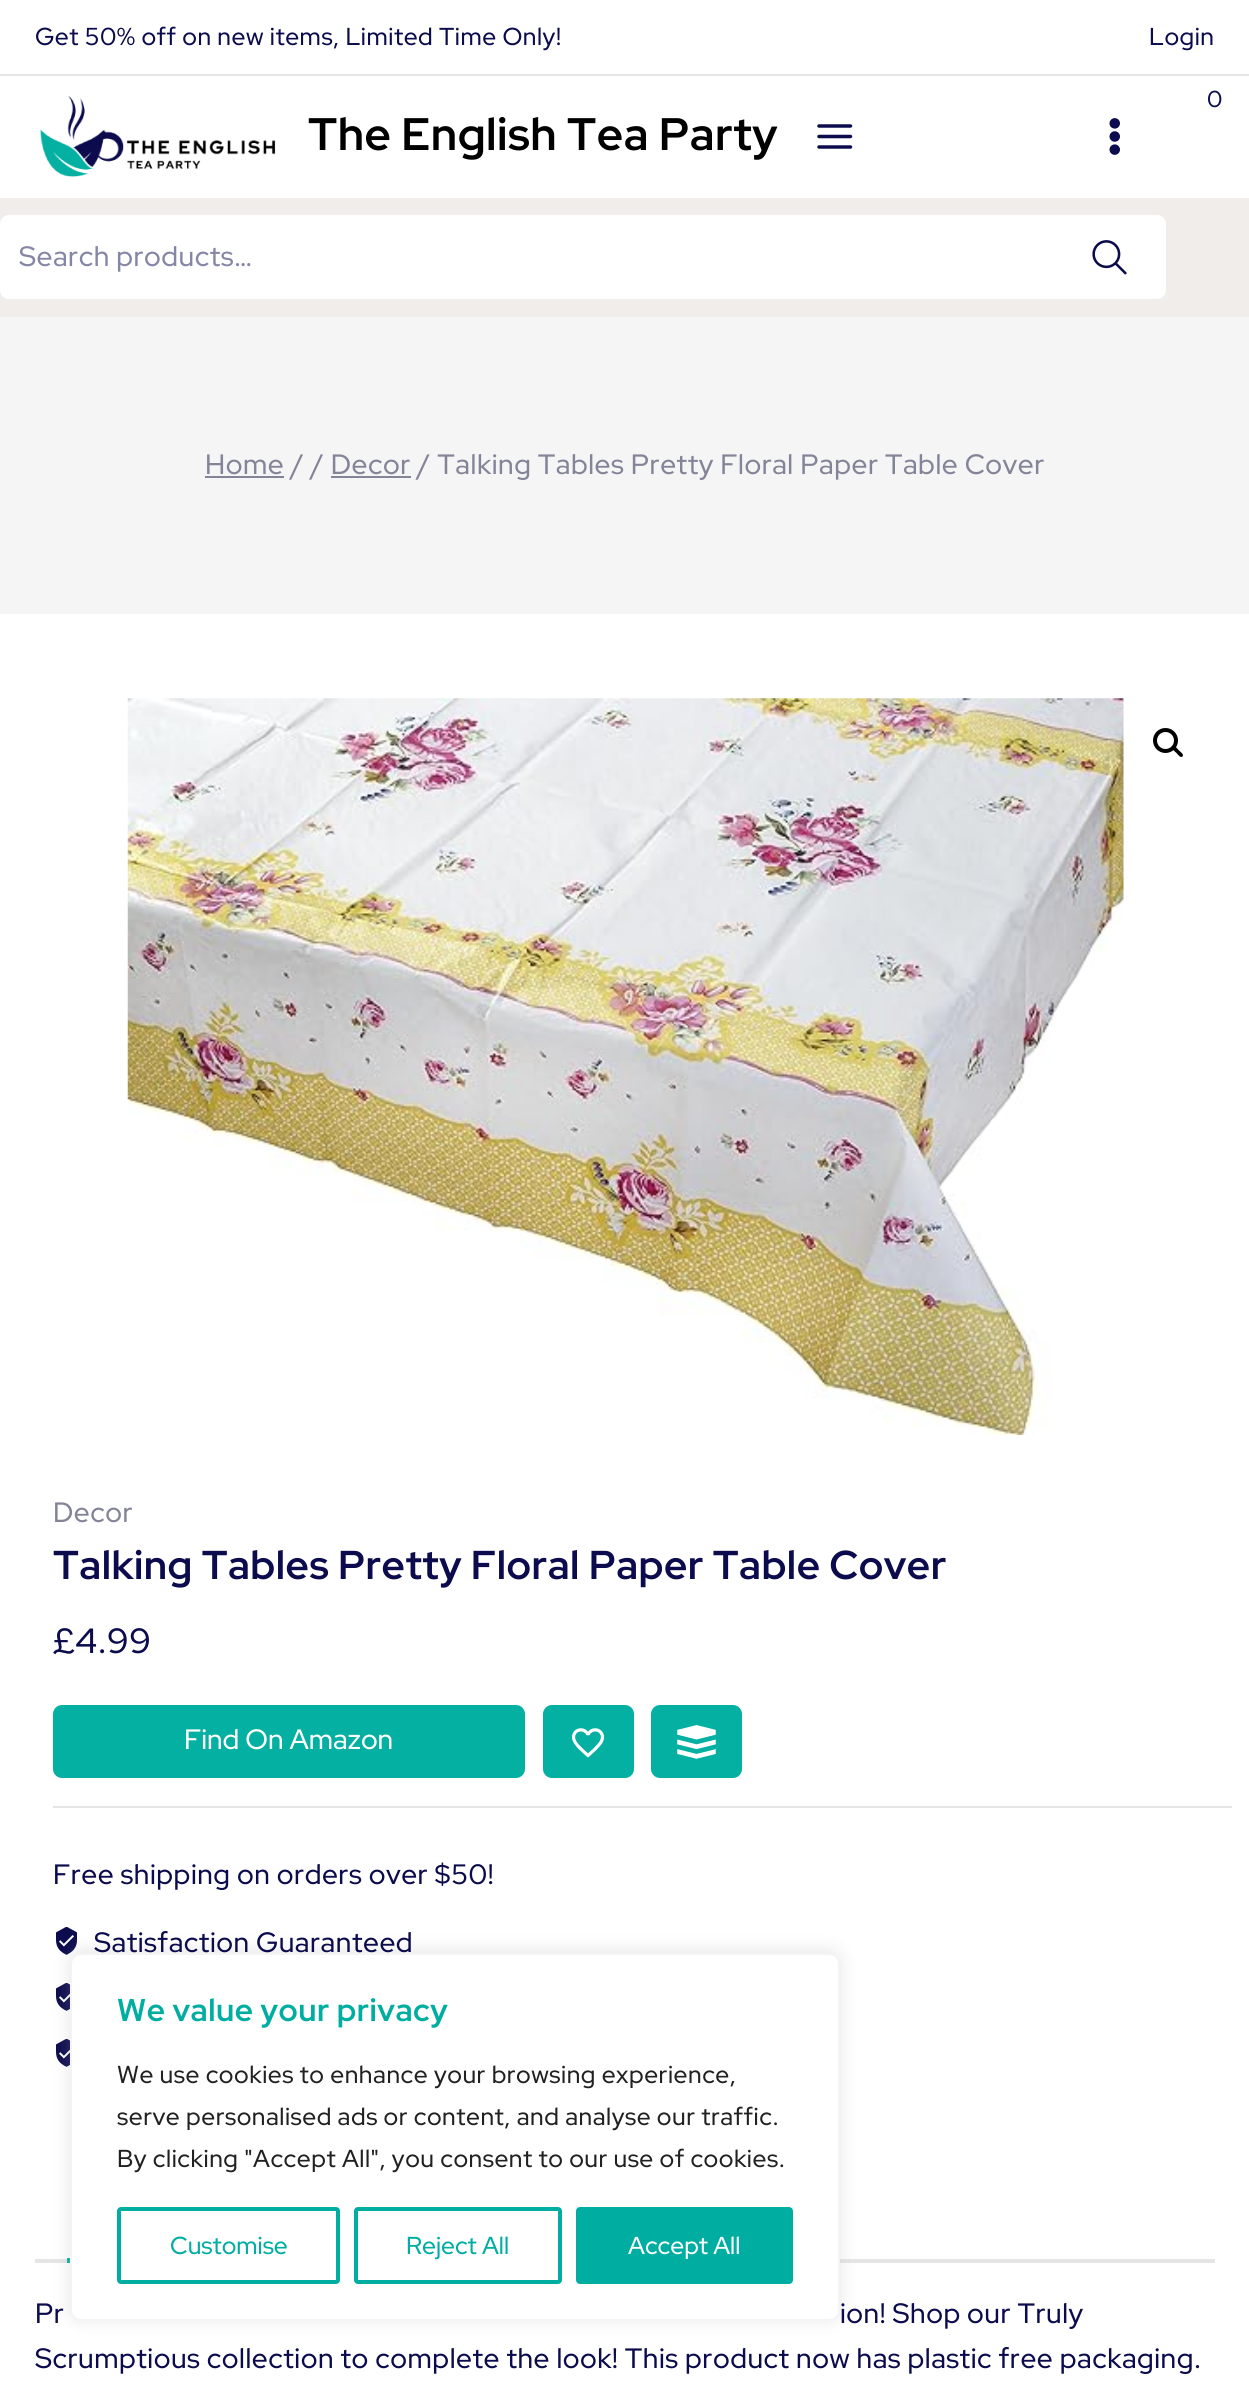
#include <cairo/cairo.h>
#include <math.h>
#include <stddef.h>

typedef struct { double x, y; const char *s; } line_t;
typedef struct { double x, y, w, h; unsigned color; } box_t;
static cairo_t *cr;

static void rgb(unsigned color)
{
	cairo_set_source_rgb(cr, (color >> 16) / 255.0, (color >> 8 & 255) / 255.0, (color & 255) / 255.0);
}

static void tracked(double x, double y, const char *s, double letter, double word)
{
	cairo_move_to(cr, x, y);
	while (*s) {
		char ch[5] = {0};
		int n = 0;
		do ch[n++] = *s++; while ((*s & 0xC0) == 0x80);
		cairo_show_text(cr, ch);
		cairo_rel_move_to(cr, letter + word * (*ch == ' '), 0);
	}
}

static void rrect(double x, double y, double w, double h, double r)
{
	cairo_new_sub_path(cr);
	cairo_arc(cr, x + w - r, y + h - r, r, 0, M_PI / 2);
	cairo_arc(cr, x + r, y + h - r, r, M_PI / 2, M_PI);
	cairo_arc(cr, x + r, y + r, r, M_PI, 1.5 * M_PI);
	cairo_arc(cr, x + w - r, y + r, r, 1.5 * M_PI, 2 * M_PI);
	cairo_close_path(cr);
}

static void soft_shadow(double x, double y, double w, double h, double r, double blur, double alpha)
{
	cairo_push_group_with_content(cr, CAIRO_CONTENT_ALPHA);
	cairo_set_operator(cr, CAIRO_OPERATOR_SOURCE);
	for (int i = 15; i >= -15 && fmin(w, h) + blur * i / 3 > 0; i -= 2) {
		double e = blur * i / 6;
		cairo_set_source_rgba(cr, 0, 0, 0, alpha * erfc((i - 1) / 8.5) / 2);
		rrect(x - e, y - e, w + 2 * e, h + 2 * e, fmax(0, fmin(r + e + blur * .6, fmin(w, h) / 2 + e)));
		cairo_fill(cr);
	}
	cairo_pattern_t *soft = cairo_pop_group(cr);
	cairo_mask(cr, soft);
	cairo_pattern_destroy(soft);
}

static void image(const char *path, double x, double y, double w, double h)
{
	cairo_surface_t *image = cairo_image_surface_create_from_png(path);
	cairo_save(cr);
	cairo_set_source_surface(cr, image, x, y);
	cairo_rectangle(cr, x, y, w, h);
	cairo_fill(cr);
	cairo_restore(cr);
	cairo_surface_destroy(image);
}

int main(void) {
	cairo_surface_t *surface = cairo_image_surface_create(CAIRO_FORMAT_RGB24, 1249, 2390);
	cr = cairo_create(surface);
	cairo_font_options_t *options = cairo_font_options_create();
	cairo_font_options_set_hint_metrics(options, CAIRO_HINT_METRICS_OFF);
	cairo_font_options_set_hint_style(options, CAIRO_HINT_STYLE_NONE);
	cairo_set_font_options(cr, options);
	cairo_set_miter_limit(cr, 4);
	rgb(0xffffff);
	cairo_paint(cr);
	rgb(0xe5e5e5);
	cairo_rectangle(cr, 0, 74, 1249, 2);
	cairo_fill(cr);
	image("img/1.png", 1109, 118, 11, 37);
	image("img/2.png", 40, 95, 236, 82);
	image("img/3.png", 817, 124, 36, 25);
	rgb(0xf0edeb);
	cairo_rectangle(cr, 0, 198, 1249, 119);
	cairo_fill(cr);
	rgb(0xffffff);
	rrect(1, 216, 1164, 82, 8);
	cairo_fill_preserve(cr);
	cairo_stroke(cr);
	image("img/4.png", 1092, 240, 35, 35);
	{
		static const box_t items[] = {
			{0, 317, 1249, 297, 0xf5f5f5},
			{205, 476, 79, 2, 0x848499},
			{331, 476, 80, 2, 0x848499},
		};
		for (size_t i = 0; i < sizeof items / sizeof *items; i++) {
			rgb(items[i].color);
			cairo_rectangle(cr, items[i].x, items[i].y, items[i].w, items[i].h);
			cairo_fill(cr);
		}
	}
	image("img/5.png", 127, 698, 997, 737);
	cairo_arc(cr, 1165.5, 740.5, 10.5, 0, 2 * M_PI);
	rgb(0x000000);
	cairo_set_line_width(cr, 4);
	cairo_stroke(cr);
	cairo_new_path(cr);
	cairo_move_to(cr, 1173, 747);
	cairo_curve_to(cr, 1175, 745, 1178, 749.5, 1179, 750.5);
	cairo_curve_to(cr, 1180, 751.5, 1184.5, 754.5, 1182.5, 756.5);
	cairo_curve_to(cr, 1180.5, 758.5, 1177.5, 754, 1176.5, 753);
	cairo_curve_to(cr, 1175.5, 752, 1171, 749, 1173, 747);
	cairo_close_path(cr);
	cairo_fill(cr);
	rgb(0x04b0a2);
	rrect(53, 1705, 472, 73, 9);
	cairo_fill(cr);
	rrect(543, 1705, 91, 73, 9);
	cairo_fill(cr);
	image("img/6.png", 572, 1728, 32, 30);
	rrect(651, 1705, 91, 73, 9);
	cairo_fill(cr);
	image("img/7.png", 677, 1725, 39, 34);
	rgb(0xe5e5e5);
	cairo_rectangle(cr, 53, 1806, 1179, 2);
	cairo_fill(cr);
	image("img/8.png", 56, 1927, 21, 28);
	image("img/9.png", 56, 1983, 14, 28);
	image("img/9.png", 56, 2039, 14, 28);
	cairo_rectangle(cr, 35, 2259, 1180, 4);
	cairo_fill(cr);
	rgb(0x04b0a2);
	cairo_rectangle(cr, 67, 2258, 3, 5);
	cairo_fill(cr);
	rgb(0xacabab);
	soft_shadow(70, 1951, 770, 368, 11, 9, 0.3);
	rgb(0xffffff);
	rrect(71, 1954, 768, 366, 10);
	cairo_fill_preserve(cr);
	rgb(0xf4f4f4);
	cairo_set_line_width(cr, 2);
	cairo_stroke(cr);
	rrect(119, 2209, 219, 73, 2);
	rgb(0x00ada1);
	cairo_set_line_width(cr, 4);
	cairo_stroke(cr);
	rrect(356, 2209, 204, 73, 2);
	cairo_stroke(cr);
	rrect(578, 2209, 213, 73, 2);
	cairo_fill_preserve(cr);
	cairo_stroke(cr);
	cairo_select_font_face(cr, "Red Hat Display Medium", CAIRO_FONT_SLANT_NORMAL, CAIRO_FONT_WEIGHT_NORMAL);
	cairo_set_font_size(cr, 24.5);
	rgb(0x0b0b4d);
	tracked(35, 45, "Get 50% off on new items, Limited Time Only!", 0.53, 0);
	tracked(1149, 45, "Login", 0.53, 0);
	cairo_set_font_size(cr, 23);
	cairo_move_to(cr, 1207, 107);
	cairo_show_text(cr, "0");
	cairo_select_font_face(cr, "Red Hat Display", CAIRO_FONT_SLANT_NORMAL, CAIRO_FONT_WEIGHT_BOLD);
	cairo_set_font_size(cr, 45.5);
	rgb(0x000000);
	tracked(308, 150, "The English Tea Party", 0.53, 0);
	cairo_select_font_face(cr, "Red Hat Display Medium", CAIRO_FONT_SLANT_NORMAL, CAIRO_FONT_WEIGHT_NORMAL);
	cairo_set_font_size(cr, 28);
	rgb(0x8585a6);
	tracked(19, 266, "Search products…", 0.53, 0);
	rgb(0x848499);
	tracked(205, 474, "Home / / Decor / Talking Tables Pretty Floral Paper Table Cover", 0.53, 0);
	tracked(53, 1522, "Decor", 0.53, 0);
	cairo_select_font_face(cr, "Red Hat Display", CAIRO_FONT_SLANT_NORMAL, CAIRO_FONT_WEIGHT_BOLD);
	cairo_set_font_size(cr, 40.25);
	rgb(0x0b0b4d);
	tracked(53, 1579, "Talking Tables Pretty Floral Paper Table Cover", 0.53, 0);
	cairo_select_font_face(cr, "Red Hat Display Medium", CAIRO_FONT_SLANT_NORMAL, CAIRO_FONT_WEIGHT_NORMAL);
	cairo_set_font_size(cr, 35);
	tracked(53, 1653, "£4.99", 0.53, 0);
	cairo_set_font_size(cr, 28);
	rgb(0xffffff);
	cairo_move_to(cr, 184, 1749);
	cairo_show_text(cr, "Find On Amazon");
	rgb(0x0b0b4d);
	{
		static const line_t items[] = {
			{53, 1884, "Free shipping on orders over $50!"},
			{94, 1952, "Satisfaction Guaranteed"},
			{35, 2323, "Pr"},
			{840, 2323, "ion! Shop our Truly"},
			{35, 2368, "Scrumptious collection to complete the look! This product now has plastic free packaging."},
		};
		for (size_t i = 0; i < sizeof items / sizeof *items; i++) {
			tracked(items[i].x, items[i].y, items[i].s, 0.53, 0);
		}
	}
	cairo_select_font_face(cr, "Red Hat Display", CAIRO_FONT_SLANT_NORMAL, CAIRO_FONT_WEIGHT_BOLD);
	cairo_set_font_size(cr, 31.5);
	rgb(0x00ada1);
	tracked(117, 2021, "We value your privacy", 0.53, 0);
	cairo_select_font_face(cr, "Red Hat Display Medium", CAIRO_FONT_SLANT_NORMAL, CAIRO_FONT_WEIGHT_NORMAL);
	cairo_set_font_size(cr, 24.5);
	rgb(0x212121);
	{
		static const line_t items[] = {
			{117, 2083, "We use cookies to enhance your browsing experience,"},
			{117, 2125, "serve personalised ads or content, and analyse our traffic."},
			{117, 2167, "By clicking \"Accept All\", you consent to our use of cookies."},
		};
		for (size_t i = 0; i < sizeof items / sizeof *items; i++) {
			tracked(items[i].x, items[i].y, items[i].s, 0.53, 0);
		}
	}
	rgb(0x00ada1);
	cairo_move_to(cr, 170, 2254);
	cairo_show_text(cr, "Customise");
	cairo_move_to(cr, 406, 2254);
	cairo_show_text(cr, "Reject All");
	rgb(0xffffff);
	cairo_move_to(cr, 628, 2254);
	cairo_show_text(cr, "Accept All");
	cairo_surface_write_to_png(surface, "page.png");
	cairo_font_options_destroy(options);
	cairo_destroy(cr);
	cairo_surface_destroy(surface);
	return 0;
}
